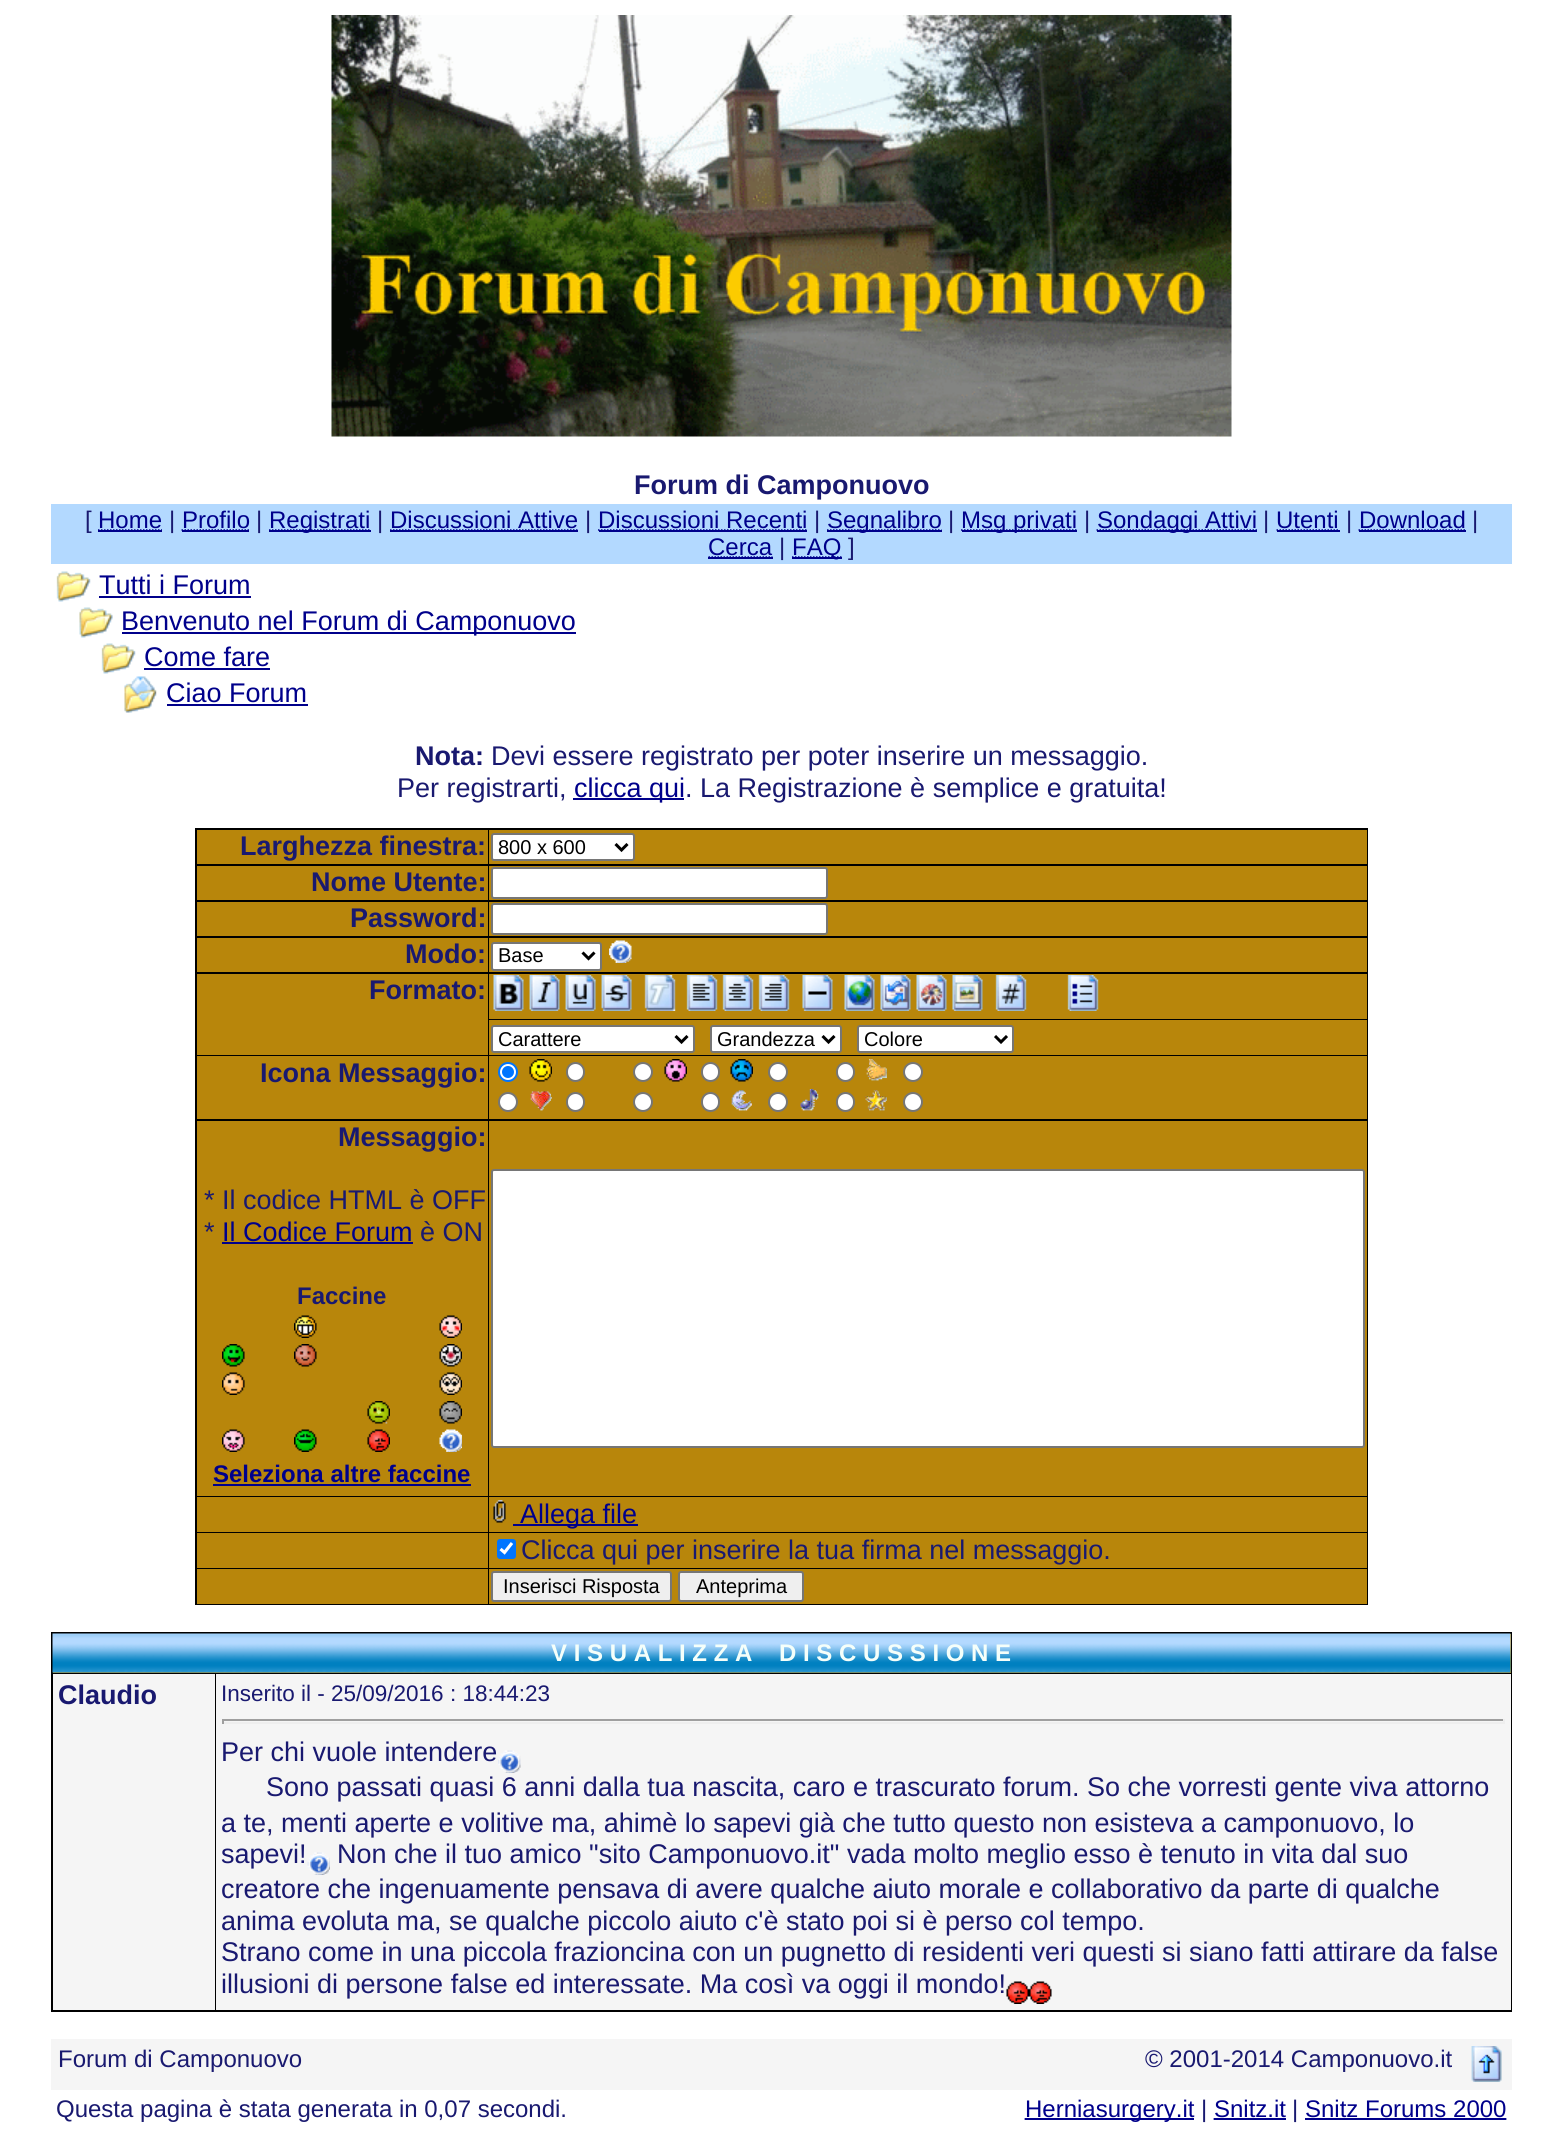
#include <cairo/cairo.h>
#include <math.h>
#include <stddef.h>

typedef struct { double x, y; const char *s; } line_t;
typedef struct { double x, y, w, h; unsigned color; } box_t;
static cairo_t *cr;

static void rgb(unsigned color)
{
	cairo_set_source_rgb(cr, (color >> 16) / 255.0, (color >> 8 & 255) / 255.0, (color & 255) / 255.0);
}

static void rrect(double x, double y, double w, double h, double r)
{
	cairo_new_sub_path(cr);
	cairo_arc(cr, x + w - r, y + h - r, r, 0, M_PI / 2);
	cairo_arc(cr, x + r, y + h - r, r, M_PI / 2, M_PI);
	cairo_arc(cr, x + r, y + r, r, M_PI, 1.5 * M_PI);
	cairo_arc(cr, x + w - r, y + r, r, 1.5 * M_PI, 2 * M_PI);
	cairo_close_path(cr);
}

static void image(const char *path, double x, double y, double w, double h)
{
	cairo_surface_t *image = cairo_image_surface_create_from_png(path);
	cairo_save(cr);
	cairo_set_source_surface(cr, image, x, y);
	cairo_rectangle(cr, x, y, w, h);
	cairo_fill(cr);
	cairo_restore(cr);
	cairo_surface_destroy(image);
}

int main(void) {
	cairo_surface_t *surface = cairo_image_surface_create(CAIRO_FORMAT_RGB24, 1563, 2133);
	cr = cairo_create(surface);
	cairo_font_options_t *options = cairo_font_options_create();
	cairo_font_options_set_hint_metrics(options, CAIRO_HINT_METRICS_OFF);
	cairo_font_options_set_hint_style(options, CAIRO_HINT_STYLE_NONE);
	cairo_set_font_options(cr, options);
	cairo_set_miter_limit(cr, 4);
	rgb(0xffffff);
	cairo_paint(cr);
	image("img/1.png", 331, 15, 901, 422);
	rgb(0xb3d9ff);
	cairo_rectangle(cr, 51, 504, 1461, 60);
	cairo_fill(cr);
	cairo_new_path(cr);
	cairo_move_to(cr, 98, 530);
	cairo_line_to(cr, 162, 530);
	rgb(0x00008b);
	cairo_set_line_width(cr, 1.5);
	cairo_set_dash(cr, (double[]){1.5, 1.5}, 2, 0);
	cairo_stroke(cr);
	cairo_rectangle(cr, 98, 530, 64, 2);
	cairo_fill(cr);
	cairo_new_path(cr);
	cairo_move_to(cr, 181.5, 530);
	cairo_line_to(cr, 249.5, 530);
	cairo_stroke(cr);
	cairo_rectangle(cr, 182, 530, 67, 2);
	cairo_fill(cr);
	cairo_new_path(cr);
	cairo_move_to(cr, 269, 530);
	cairo_line_to(cr, 370.5, 530);
	cairo_stroke(cr);
	cairo_rectangle(cr, 269, 530, 102, 2);
	cairo_fill(cr);
	cairo_new_path(cr);
	cairo_move_to(cr, 390, 530);
	cairo_line_to(cr, 578, 530);
	cairo_stroke(cr);
	cairo_rectangle(cr, 390, 530, 188, 2);
	cairo_fill(cr);
	cairo_new_path(cr);
	cairo_move_to(cr, 598, 530);
	cairo_line_to(cr, 807, 530);
	cairo_stroke(cr);
	cairo_rectangle(cr, 599, 530, 208, 2);
	cairo_fill(cr);
	cairo_new_path(cr);
	cairo_move_to(cr, 827, 530);
	cairo_line_to(cr, 941.5, 530);
	cairo_stroke(cr);
	cairo_rectangle(cr, 827, 530, 115, 2);
	cairo_fill(cr);
	cairo_new_path(cr);
	cairo_move_to(cr, 961, 530);
	cairo_line_to(cr, 1077, 530);
	cairo_stroke(cr);
	cairo_rectangle(cr, 962, 530, 115, 2);
	cairo_fill(cr);
	cairo_new_path(cr);
	cairo_move_to(cr, 1096.5, 530);
	cairo_line_to(cr, 1257, 530);
	cairo_stroke(cr);
	cairo_rectangle(cr, 1097, 530, 160, 2);
	cairo_fill(cr);
	cairo_new_path(cr);
	cairo_move_to(cr, 1276.5, 530);
	cairo_line_to(cr, 1339, 530);
	cairo_stroke(cr);
	cairo_rectangle(cr, 1277, 530, 63, 2);
	cairo_fill(cr);
	cairo_new_path(cr);
	cairo_move_to(cr, 1358.5, 530);
	cairo_line_to(cr, 1465.5, 530);
	cairo_stroke(cr);
	cairo_rectangle(cr, 1359, 530, 107, 2);
	cairo_fill(cr);
	cairo_new_path(cr);
	cairo_move_to(cr, 708.5, 557);
	cairo_line_to(cr, 772.5, 557);
	cairo_stroke(cr);
	cairo_rectangle(cr, 708, 557, 65, 2);
	cairo_fill(cr);
	cairo_new_path(cr);
	cairo_move_to(cr, 792, 557);
	cairo_line_to(cr, 841.5, 557);
	cairo_stroke(cr);
	cairo_rectangle(cr, 792, 557, 50, 2);
	cairo_fill(cr);
	image("img/2.png", 56, 571, 35, 31);
	cairo_rectangle(cr, 99, 596, 152, 2);
	cairo_fill(cr);
	image("img/3.png", 79, 607, 34, 31);
	cairo_rectangle(cr, 122, 632, 454, 2);
	cairo_fill(cr);
	image("img/2.png", 101, 643, 35, 31);
	cairo_rectangle(cr, 144, 668, 126, 2);
	cairo_fill(cr);
	image("img/4.png", 124, 676, 33, 37);
	{
		static const box_t items[] = {
			{167, 704, 141, 2, 0x00008b},
			{573, 798, 111, 2, 0x00008b},
			{195, 828, 1173, 777, 0x000000},
			{197, 830, 291, 34, 0xb8860b},
			{489, 830, 878, 34, 0xb8860b},
		};
		for (size_t i = 0; i < sizeof items / sizeof *items; i++) {
			rgb(items[i].color);
			cairo_rectangle(cr, items[i].x, items[i].y, items[i].w, items[i].h);
			cairo_fill(cr);
		}
	}
	rgb(0xffffff);
	rrect(492, 834, 142, 26, 2);
	cairo_fill_preserve(cr);
	rgb(0x767676);
	cairo_set_line_width(cr, 2);
	cairo_set_dash(cr, NULL, 0, 0);
	cairo_stroke(cr);
	cairo_new_path(cr);
	cairo_move_to(cr, 615.5, 844);
	cairo_line_to(cr, 621.5, 850);
	cairo_line_to(cr, 627.5, 844);
	rgb(0x000000);
	cairo_set_line_width(cr, 3);
	cairo_stroke(cr);
	rgb(0xb8860b);
	cairo_rectangle(cr, 197, 866, 291, 34);
	cairo_fill(cr);
	cairo_rectangle(cr, 489, 866, 878, 34);
	cairo_fill(cr);
	rgb(0xffffff);
	rrect(492, 868, 335, 30, 2);
	cairo_fill_preserve(cr);
	rgb(0x767676);
	cairo_set_line_width(cr, 2);
	cairo_stroke(cr);
	rgb(0xb8860b);
	cairo_rectangle(cr, 197, 902, 291, 34);
	cairo_fill(cr);
	cairo_rectangle(cr, 489, 902, 878, 34);
	cairo_fill(cr);
	rgb(0xffffff);
	rrect(492, 904, 335, 30, 2);
	cairo_fill_preserve(cr);
	rgb(0x767676);
	cairo_stroke(cr);
	rgb(0xb8860b);
	cairo_rectangle(cr, 197, 938, 291, 34);
	cairo_fill(cr);
	cairo_rectangle(cr, 489, 938, 878, 34);
	cairo_fill(cr);
	rgb(0xffffff);
	rrect(492, 943, 109, 27, 2);
	cairo_fill_preserve(cr);
	rgb(0x767676);
	cairo_stroke(cr);
	cairo_new_path(cr);
	cairo_move_to(cr, 582.5, 952.5);
	cairo_line_to(cr, 588.5, 958.5);
	cairo_line_to(cr, 594.5, 952.5);
	rgb(0x000000);
	cairo_set_line_width(cr, 3);
	cairo_stroke(cr);
	image("img/5.png", 609, 940, 23, 23);
	rgb(0xb8860b);
	cairo_rectangle(cr, 197, 974, 291, 81);
	cairo_fill(cr);
	cairo_rectangle(cr, 489, 974, 878, 45);
	cairo_fill(cr);
	image("img/6.png", 493, 975, 31, 36);
	image("img/7.png", 529, 975, 31, 36);
	image("img/8.png", 565, 975, 31, 36);
	image("img/9.png", 601, 975, 31, 36);
	image("img/10.png", 644, 975, 32, 36);
	image("img/11.png", 686, 975, 32, 36);
	image("img/12.png", 722, 975, 32, 36);
	image("img/13.png", 758, 975, 32, 36);
	image("img/14.png", 802, 975, 31, 36);
	image("img/15.png", 844, 975, 31, 36);
	image("img/16.png", 880, 975, 31, 36);
	image("img/17.png", 916, 975, 31, 36);
	image("img/18.png", 952, 975, 31, 36);
	image("img/19.png", 995, 975, 32, 36);
	image("img/20.png", 1067, 975, 32, 36);
	cairo_rectangle(cr, 489, 1020, 878, 35);
	cairo_fill(cr);
	rgb(0xffffff);
	rrect(492, 1026, 202, 26, 2);
	cairo_fill_preserve(cr);
	rgb(0x767676);
	cairo_set_line_width(cr, 2);
	cairo_stroke(cr);
	cairo_new_path(cr);
	cairo_move_to(cr, 675.5, 1036);
	cairo_line_to(cr, 681.5, 1042);
	cairo_line_to(cr, 687.5, 1036);
	rgb(0x000000);
	cairo_set_line_width(cr, 3);
	cairo_stroke(cr);
	rgb(0xffffff);
	rrect(711, 1026, 130, 26, 2);
	cairo_fill_preserve(cr);
	rgb(0x767676);
	cairo_set_line_width(cr, 2);
	cairo_stroke(cr);
	cairo_new_path(cr);
	cairo_move_to(cr, 822.5, 1036);
	cairo_line_to(cr, 828.5, 1042);
	cairo_line_to(cr, 834.5, 1036);
	rgb(0x000000);
	cairo_set_line_width(cr, 3);
	cairo_stroke(cr);
	rgb(0xffffff);
	rrect(858, 1026, 155, 26, 2);
	cairo_fill_preserve(cr);
	rgb(0x767676);
	cairo_set_line_width(cr, 2);
	cairo_stroke(cr);
	cairo_new_path(cr);
	cairo_move_to(cr, 995, 1036);
	cairo_line_to(cr, 1001, 1042);
	cairo_line_to(cr, 1007, 1036);
	rgb(0x000000);
	cairo_set_line_width(cr, 3);
	cairo_stroke(cr);
	rgb(0xb8860b);
	cairo_rectangle(cr, 197, 1056, 291, 63);
	cairo_fill(cr);
	cairo_rectangle(cr, 489, 1056, 878, 63);
	cairo_fill(cr);
	rgb(0xffffff);
	cairo_arc(cr, 508, 1072, 9, 0, 2 * M_PI);
	cairo_fill_preserve(cr);
	rgb(0x0075ff);
	cairo_set_line_width(cr, 2);
	cairo_stroke(cr);
	cairo_arc(cr, 508, 1072, 6, 0, 2 * M_PI);
	cairo_fill(cr);
	image("img/21.png", 529, 1059, 23, 23);
	rgb(0xffffff);
	rrect(567, 1063, 17, 18, 8.5);
	cairo_fill_preserve(cr);
	rgb(0x767676);
	cairo_stroke(cr);
	rgb(0xffffff);
	cairo_arc(cr, 643, 1072, 9, 0, 2 * M_PI);
	cairo_fill_preserve(cr);
	rgb(0x767676);
	cairo_stroke(cr);
	image("img/22.png", 664, 1059, 23, 23);
	rgb(0xffffff);
	rrect(702, 1063, 17, 18, 8.5);
	cairo_fill_preserve(cr);
	rgb(0x767676);
	cairo_stroke(cr);
	image("img/23.png", 730, 1059, 23, 23);
	rgb(0xffffff);
	cairo_arc(cr, 778, 1072, 9, 0, 2 * M_PI);
	cairo_fill_preserve(cr);
	rgb(0x767676);
	cairo_stroke(cr);
	rgb(0xffffff);
	rrect(837, 1063, 17, 18, 8.5);
	cairo_fill_preserve(cr);
	rgb(0x767676);
	cairo_stroke(cr);
	image("img/24.png", 866, 1059, 21, 22);
	rgb(0xffffff);
	cairo_arc(cr, 913, 1072, 9, 0, 2 * M_PI);
	cairo_fill_preserve(cr);
	rgb(0x767676);
	cairo_stroke(cr);
	rgb(0xffffff);
	cairo_arc(cr, 508, 1102, 9, 0, 2 * M_PI);
	cairo_fill_preserve(cr);
	rgb(0x767676);
	cairo_stroke(cr);
	image("img/25.png", 530, 1091, 22, 20);
	rgb(0xffffff);
	rrect(567, 1093, 17, 18, 8.5);
	cairo_fill_preserve(cr);
	rgb(0x767676);
	cairo_stroke(cr);
	rgb(0xffffff);
	cairo_arc(cr, 643, 1102, 9, 0, 2 * M_PI);
	cairo_fill_preserve(cr);
	rgb(0x767676);
	cairo_stroke(cr);
	rgb(0xffffff);
	rrect(702, 1093, 17, 18, 8.5);
	cairo_fill_preserve(cr);
	rgb(0x767676);
	cairo_stroke(cr);
	image("img/26.png", 731, 1090, 21, 21);
	rgb(0xffffff);
	cairo_arc(cr, 778, 1102, 9, 0, 2 * M_PI);
	cairo_fill_preserve(cr);
	rgb(0x767676);
	cairo_stroke(cr);
	image("img/27.png", 800, 1089, 19, 22);
	rgb(0xffffff);
	rrect(837, 1093, 17, 18, 8.5);
	cairo_fill_preserve(cr);
	rgb(0x767676);
	cairo_stroke(cr);
	image("img/28.png", 865, 1090, 22, 21);
	rgb(0xffffff);
	cairo_arc(cr, 913, 1102, 9, 0, 2 * M_PI);
	cairo_fill_preserve(cr);
	rgb(0x767676);
	cairo_stroke(cr);
	rgb(0xb8860b);
	cairo_rectangle(cr, 197, 1121, 291, 375);
	cairo_fill(cr);
	rgb(0x00008b);
	cairo_rectangle(cr, 222, 1242, 191, 2);
	cairo_fill(cr);
	image("img/29.png", 294, 1315, 23, 23);
	image("img/30.png", 439, 1315, 23, 23);
	image("img/31.png", 222, 1344, 23, 23);
	image("img/32.png", 294, 1344, 23, 23);
	image("img/33.png", 439, 1344, 23, 23);
	image("img/34.png", 222, 1372, 23, 23);
	image("img/35.png", 439, 1372, 23, 23);
	image("img/36.png", 367, 1401, 23, 23);
	image("img/37.png", 439, 1401, 23, 23);
	image("img/38.png", 222, 1429, 23, 23);
	image("img/39.png", 294, 1429, 23, 23);
	image("img/40.png", 367, 1429, 23, 23);
	image("img/41.png", 439, 1429, 23, 23);
	cairo_rectangle(cr, 213, 1484, 258, 2);
	cairo_fill(cr);
	rgb(0xb8860b);
	cairo_rectangle(cr, 489, 1121, 878, 375);
	cairo_fill(cr);
	rgb(0xffffff);
	rrect(492, 1170, 872, 277, 2);
	cairo_fill_preserve(cr);
	rgb(0x767676);
	cairo_stroke(cr);
	rgb(0xb8860b);
	cairo_rectangle(cr, 197, 1497, 291, 35);
	cairo_fill(cr);
	cairo_rectangle(cr, 489, 1497, 878, 35);
	cairo_fill(cr);
	image("img/42.png", 493, 1500, 13, 23);
	rgb(0x00008b);
	cairo_rectangle(cr, 513, 1524, 8, 2);
	cairo_fill(cr);
	cairo_new_path(cr);
	cairo_move_to(cr, 520, 1525);
	cairo_line_to(cr, 637, 1525);
	cairo_set_line_width(cr, 1.5);
	cairo_set_dash(cr, (double[]){1.5, 1.5}, 2, 0);
	cairo_stroke(cr);
	{
		static const box_t items[] = {
			{521, 1524, 117, 2, 0x00008b},
			{197, 1533, 291, 35, 0xb8860b},
			{489, 1533, 878, 35, 0xb8860b},
		};
		for (size_t i = 0; i < sizeof items / sizeof *items; i++) {
			rgb(items[i].color);
			cairo_rectangle(cr, items[i].x, items[i].y, items[i].w, items[i].h);
			cairo_fill(cr);
		}
	}
	rgb(0x0075ff);
	rrect(497, 1539, 19, 20, 3);
	cairo_fill(cr);
	cairo_new_path(cr);
	cairo_move_to(cr, 500.5, 1549);
	cairo_line_to(cr, 504.5, 1552.5);
	cairo_line_to(cr, 512, 1543);
	rgb(0xffffff);
	cairo_set_line_width(cr, 3.1);
	cairo_set_dash(cr, NULL, 0, 0);
	cairo_stroke(cr);
	rgb(0xb8860b);
	cairo_rectangle(cr, 197, 1569, 291, 35);
	cairo_fill(cr);
	cairo_rectangle(cr, 489, 1569, 878, 35);
	cairo_fill(cr);
	rgb(0xefefef);
	rrect(492, 1572, 179, 29, 2);
	cairo_fill_preserve(cr);
	rgb(0x767676);
	cairo_set_line_width(cr, 2);
	cairo_stroke(cr);
	rgb(0xefefef);
	rrect(679, 1572, 124, 29, 2);
	cairo_fill_preserve(cr);
	rgb(0x767676);
	cairo_stroke(cr);
	rgb(0x000000);
	cairo_rectangle(cr, 51, 1632, 1461, 380);
	cairo_fill(cr);
	rgb(0xb8860b);
	cairo_rectangle(cr, 53, 1634, 1458, 39);
	cairo_fill(cr);
	image("img/43.png", 52, 1633, 1459, 40);
	{
		static const box_t items[] = {
			{53, 1674, 162, 336, 0xf5f5f5},
			{216, 1674, 1295, 336, 0xf5f5f5},
			{222, 1719, 1283, 2, 0x9f9f9f},
			{1503, 1719, 2, 5, 0xeeeeee},
			{222, 1722, 1283, 2, 0xeeeeee},
			{222, 1719, 2, 5, 0x9f9f9f},
		};
		for (size_t i = 0; i < sizeof items / sizeof *items; i++) {
			rgb(items[i].color);
			cairo_rectangle(cr, items[i].x, items[i].y, items[i].w, items[i].h);
			cairo_fill(cr);
		}
	}
	image("img/44.png", 498, 1750, 23, 23);
	image("img/45.png", 307, 1852, 23, 23);
	image("img/46.png", 1006, 1981, 23, 23);
	image("img/47.png", 1029, 1981, 23, 23);
	rgb(0xf5f5f5);
	cairo_rectangle(cr, 51, 2039, 1461, 51);
	cairo_fill(cr);
	image("img/48.png", 1471, 2046, 31, 36);
	cairo_new_path(cr);
	cairo_move_to(cr, 1024.5, 2119);
	cairo_line_to(cr, 1194, 2119);
	rgb(0x00008b);
	cairo_set_line_width(cr, 1.5);
	cairo_set_dash(cr, (double[]){1.5, 1.5}, 2, 0);
	cairo_stroke(cr);
	cairo_rectangle(cr, 1025, 2118, 169, 2);
	cairo_fill(cr);
	cairo_new_path(cr);
	cairo_move_to(cr, 1213.5, 2119);
	cairo_line_to(cr, 1285.5, 2119);
	cairo_stroke(cr);
	cairo_rectangle(cr, 1214, 2118, 72, 2);
	cairo_fill(cr);
	cairo_new_path(cr);
	cairo_move_to(cr, 1305, 2119);
	cairo_line_to(cr, 1506.5, 2119);
	cairo_stroke(cr);
	cairo_rectangle(cr, 1305, 2118, 201, 2);
	cairo_fill(cr);
	cairo_select_font_face(cr, "Liberation Sans", CAIRO_FONT_SLANT_NORMAL, CAIRO_FONT_WEIGHT_BOLD);
	cairo_set_font_size(cr, 27);
	rgb(0x191970);
	cairo_move_to(cr, 634, 494);
	cairo_show_text(cr, "Forum di Camponuovo");
	cairo_select_font_face(cr, "Liberation Sans", CAIRO_FONT_SLANT_NORMAL, CAIRO_FONT_WEIGHT_NORMAL);
	cairo_set_font_size(cr, 24);
	cairo_move_to(cr, 85, 528);
	cairo_show_text(cr, "[");
	rgb(0x00008b);
	cairo_move_to(cr, 98, 528);
	cairo_show_text(cr, "Home");
	rgb(0x191970);
	cairo_move_to(cr, 169, 528);
	cairo_show_text(cr, "|");
	rgb(0x00008b);
	cairo_move_to(cr, 182, 528);
	cairo_show_text(cr, "Profilo");
	rgb(0x191970);
	cairo_move_to(cr, 256, 528);
	cairo_show_text(cr, "|");
	rgb(0x00008b);
	cairo_move_to(cr, 269, 528);
	cairo_show_text(cr, "Registrati");
	rgb(0x191970);
	cairo_move_to(cr, 377, 528);
	cairo_show_text(cr, "|");
	rgb(0x00008b);
	cairo_move_to(cr, 390, 528);
	cairo_show_text(cr, "Discussioni Attive");
	rgb(0x191970);
	cairo_move_to(cr, 585, 528);
	cairo_show_text(cr, "|");
	rgb(0x00008b);
	cairo_move_to(cr, 598, 528);
	cairo_show_text(cr, "Discussioni Recenti");
	rgb(0x191970);
	cairo_move_to(cr, 814, 528);
	cairo_show_text(cr, "|");
	rgb(0x00008b);
	cairo_move_to(cr, 827, 528);
	cairo_show_text(cr, "Segnalibro");
	rgb(0x191970);
	cairo_move_to(cr, 948, 528);
	cairo_show_text(cr, "|");
	rgb(0x00008b);
	cairo_move_to(cr, 961, 528);
	cairo_show_text(cr, "Msg privati");
	rgb(0x191970);
	cairo_move_to(cr, 1084, 528);
	cairo_show_text(cr, "|");
	rgb(0x00008b);
	cairo_move_to(cr, 1097, 528);
	cairo_show_text(cr, "Sondaggi Attivi");
	rgb(0x191970);
	cairo_move_to(cr, 1263, 528);
	cairo_show_text(cr, "|");
	rgb(0x00008b);
	cairo_move_to(cr, 1276, 528);
	cairo_show_text(cr, "Utenti");
	rgb(0x191970);
	cairo_move_to(cr, 1346, 528);
	cairo_show_text(cr, "|");
	rgb(0x00008b);
	cairo_move_to(cr, 1359, 528);
	cairo_show_text(cr, "Download");
	rgb(0x191970);
	cairo_move_to(cr, 1472, 528);
	cairo_show_text(cr, "|");
	rgb(0x00008b);
	cairo_move_to(cr, 708, 555);
	cairo_show_text(cr, "Cerca");
	rgb(0x191970);
	cairo_move_to(cr, 779, 555);
	cairo_show_text(cr, "|");
	rgb(0x00008b);
	cairo_move_to(cr, 792, 555);
	cairo_show_text(cr, "FAQ");
	rgb(0x191970);
	cairo_move_to(cr, 848, 555);
	cairo_show_text(cr, "]");
	cairo_set_font_size(cr, 27);
	rgb(0x00008b);
	{
		static const line_t items[] = {
			{99, 594, "Tutti i Forum"},
			{121, 630, "Benvenuto nel Forum di Camponuovo"},
			{144, 666, "Come fare"},
			{166, 702, "Ciao Forum"},
		};
		for (size_t i = 0; i < sizeof items / sizeof *items; i++) {
			cairo_move_to(cr, items[i].x, items[i].y);
			cairo_show_text(cr, items[i].s);
		}
	}
	cairo_select_font_face(cr, "Liberation Sans", CAIRO_FONT_SLANT_NORMAL, CAIRO_FONT_WEIGHT_BOLD);
	rgb(0x191970);
	cairo_move_to(cr, 415, 765);
	cairo_show_text(cr, "Nota:");
	cairo_select_font_face(cr, "Liberation Sans", CAIRO_FONT_SLANT_NORMAL, CAIRO_FONT_WEIGHT_NORMAL);
	cairo_move_to(cr, 491, 765);
	cairo_show_text(cr, "Devi essere registrato per poter inserire un messaggio.");
	cairo_move_to(cr, 397, 797);
	cairo_show_text(cr, "Per registrarti,");
	rgb(0x00008b);
	cairo_move_to(cr, 574, 797);
	cairo_show_text(cr, "clicca qui");
	rgb(0x191970);
	cairo_move_to(cr, 685, 797);
	cairo_show_text(cr, ". La Registrazione è semplice e gratuita!");
	cairo_select_font_face(cr, "Liberation Sans", CAIRO_FONT_SLANT_NORMAL, CAIRO_FONT_WEIGHT_BOLD);
	cairo_move_to(cr, 240, 855);
	cairo_show_text(cr, "Larghezza finestra:");
	cairo_select_font_face(cr, "Liberation Sans", CAIRO_FONT_SLANT_NORMAL, CAIRO_FONT_WEIGHT_NORMAL);
	cairo_set_font_size(cr, 20);
	rgb(0x000000);
	cairo_move_to(cr, 498, 854);
	cairo_show_text(cr, "800 x 600");
	cairo_select_font_face(cr, "Liberation Sans", CAIRO_FONT_SLANT_NORMAL, CAIRO_FONT_WEIGHT_BOLD);
	cairo_set_font_size(cr, 27);
	rgb(0x191970);
	{
		static const line_t items[] = {
			{311, 891, "Nome Utente:"},
			{350, 927, "Password:"},
			{405, 963, "Modo:"},
		};
		for (size_t i = 0; i < sizeof items / sizeof *items; i++) {
			cairo_move_to(cr, items[i].x, items[i].y);
			cairo_show_text(cr, items[i].s);
		}
	}
	cairo_select_font_face(cr, "Liberation Sans", CAIRO_FONT_SLANT_NORMAL, CAIRO_FONT_WEIGHT_NORMAL);
	cairo_set_font_size(cr, 20);
	rgb(0x000000);
	cairo_move_to(cr, 498, 962);
	cairo_show_text(cr, "Base");
	cairo_select_font_face(cr, "Liberation Sans", CAIRO_FONT_SLANT_NORMAL, CAIRO_FONT_WEIGHT_BOLD);
	cairo_set_font_size(cr, 27);
	rgb(0x191970);
	cairo_move_to(cr, 369, 999);
	cairo_show_text(cr, "Formato:");
	cairo_select_font_face(cr, "Liberation Sans", CAIRO_FONT_SLANT_NORMAL, CAIRO_FONT_WEIGHT_NORMAL);
	cairo_set_font_size(cr, 20);
	rgb(0x000000);
	{
		static const line_t items[] = {
			{498, 1046, "Carattere"},
			{717, 1046, "Grandezza"},
			{864, 1046, "Colore"},
		};
		for (size_t i = 0; i < sizeof items / sizeof *items; i++) {
			cairo_move_to(cr, items[i].x, items[i].y);
			cairo_show_text(cr, items[i].s);
		}
	}
	cairo_select_font_face(cr, "Liberation Sans", CAIRO_FONT_SLANT_NORMAL, CAIRO_FONT_WEIGHT_BOLD);
	cairo_set_font_size(cr, 27);
	rgb(0x191970);
	cairo_move_to(cr, 260, 1082);
	cairo_show_text(cr, "Icona Messaggio:");
	cairo_move_to(cr, 338, 1146);
	cairo_show_text(cr, "Messaggio:");
	cairo_select_font_face(cr, "Liberation Sans", CAIRO_FONT_SLANT_NORMAL, CAIRO_FONT_WEIGHT_NORMAL);
	cairo_move_to(cr, 204, 1209);
	cairo_show_text(cr, "* Il codice HTML è OFF");
	cairo_move_to(cr, 204, 1241);
	cairo_show_text(cr, "*");
	rgb(0x00008b);
	cairo_move_to(cr, 222, 1241);
	cairo_show_text(cr, "Il Codice Forum");
	rgb(0x191970);
	cairo_move_to(cr, 420, 1241);
	cairo_show_text(cr, "è ON");
	cairo_select_font_face(cr, "Liberation Sans", CAIRO_FONT_SLANT_NORMAL, CAIRO_FONT_WEIGHT_BOLD);
	cairo_set_font_size(cr, 24);
	cairo_move_to(cr, 297, 1304);
	cairo_show_text(cr, "Faccine");
	rgb(0x00008b);
	cairo_move_to(cr, 213, 1482);
	cairo_show_text(cr, "Seleziona altre faccine");
	cairo_select_font_face(cr, "Liberation Sans", CAIRO_FONT_SLANT_NORMAL, CAIRO_FONT_WEIGHT_NORMAL);
	cairo_set_font_size(cr, 27);
	cairo_move_to(cr, 520, 1523);
	cairo_show_text(cr, "Allega file");
	rgb(0x191970);
	cairo_move_to(cr, 521, 1559);
	cairo_show_text(cr, "Clicca qui per inserire la tua firma nel messaggio.");
	cairo_set_font_size(cr, 20);
	rgb(0x000000);
	cairo_move_to(cr, 503, 1593);
	cairo_show_text(cr, "Inserisci Risposta");
	cairo_move_to(cr, 696, 1593);
	cairo_show_text(cr, "Anteprima");
	cairo_select_font_face(cr, "Liberation Sans", CAIRO_FONT_SLANT_NORMAL, CAIRO_FONT_WEIGHT_BOLD);
	cairo_set_font_size(cr, 24);
	rgb(0xf5fffa);
	cairo_move_to(cr, 551, 1661);
	cairo_show_text(cr, "V I S U A L I Z Z A    D I S C U S S I O N E");
	cairo_set_font_size(cr, 27);
	rgb(0x191970);
	cairo_move_to(cr, 58, 1704);
	cairo_show_text(cr, "Claudio");
	cairo_select_font_face(cr, "Liberation Sans", CAIRO_FONT_SLANT_NORMAL, CAIRO_FONT_WEIGHT_NORMAL);
	cairo_set_font_size(cr, 22.5);
	cairo_move_to(cr, 221, 1701);
	cairo_show_text(cr, "Inserito il - 25/09/2016 : 18:44:23");
	cairo_set_font_size(cr, 27);
	{
		static const line_t items[] = {
			{221, 1761, "Per chi vuole intendere"},
			{266, 1796, "Sono passati quasi 6 anni dalla tua nascita, caro e trascurato forum. So che vorresti gente viva attorno"},
			{221, 1832, "a te, menti aperte e volitive ma, ahimè lo sapevi già che tutto questo non esisteva a camponuovo, lo"},
			{221, 1863, "sapevi!"},
			{337, 1863, "Non che il tuo amico \"sito Camponuovo.it\" vada molto meglio esso è tenuto in vita dal suo"},
			{221, 1898, "creatore che ingenuamente pensava di avere qualche aiuto morale e collaborativo da parte di qualche"},
			{221, 1930, "anima evoluta ma, se qualche piccolo aiuto c'è stato poi si è perso col tempo."},
			{221, 1961, "Strano come in una piccola frazioncina con un pugnetto di residenti veri questi si siano fatti attirare da false"},
			{221, 1993, "illusioni di persone false ed interessate. Ma così va oggi il mondo!"},
		};
		for (size_t i = 0; i < sizeof items / sizeof *items; i++) {
			cairo_move_to(cr, items[i].x, items[i].y);
			cairo_show_text(cr, items[i].s);
		}
	}
	cairo_set_font_size(cr, 24);
	{
		static const line_t items[] = {
			{58, 2067, "Forum di Camponuovo"},
			{1145, 2067, "© 2001-2014 Camponuovo.it"},
			{56, 2117, "Questa pagina è stata generata in 0,07 secondi."},
		};
		for (size_t i = 0; i < sizeof items / sizeof *items; i++) {
			cairo_move_to(cr, items[i].x, items[i].y);
			cairo_show_text(cr, items[i].s);
		}
	}
	rgb(0x00008b);
	cairo_move_to(cr, 1025, 2117);
	cairo_show_text(cr, "Herniasurgery.it");
	rgb(0x191970);
	cairo_move_to(cr, 1201, 2117);
	cairo_show_text(cr, "|");
	rgb(0x00008b);
	cairo_move_to(cr, 1214, 2117);
	cairo_show_text(cr, "Snitz.it");
	rgb(0x191970);
	cairo_move_to(cr, 1292, 2117);
	cairo_show_text(cr, "|");
	rgb(0x00008b);
	cairo_move_to(cr, 1305, 2117);
	cairo_show_text(cr, "Snitz Forums 2000");
	cairo_surface_write_to_png(surface, "page.png");
	cairo_font_options_destroy(options);
	cairo_destroy(cr);
	cairo_surface_destroy(surface);
	return 0;
}
